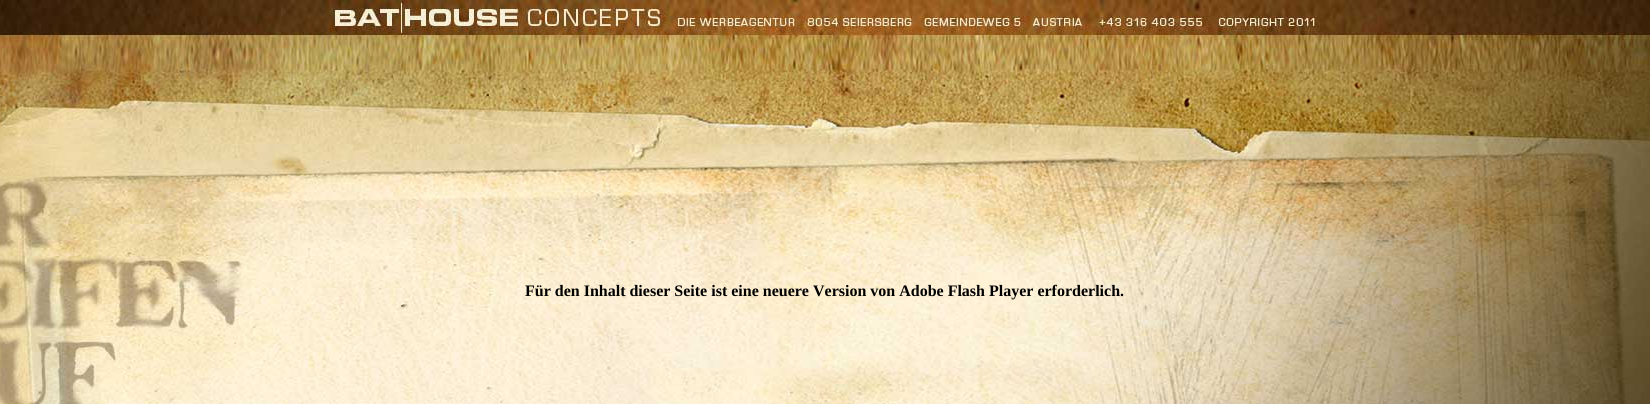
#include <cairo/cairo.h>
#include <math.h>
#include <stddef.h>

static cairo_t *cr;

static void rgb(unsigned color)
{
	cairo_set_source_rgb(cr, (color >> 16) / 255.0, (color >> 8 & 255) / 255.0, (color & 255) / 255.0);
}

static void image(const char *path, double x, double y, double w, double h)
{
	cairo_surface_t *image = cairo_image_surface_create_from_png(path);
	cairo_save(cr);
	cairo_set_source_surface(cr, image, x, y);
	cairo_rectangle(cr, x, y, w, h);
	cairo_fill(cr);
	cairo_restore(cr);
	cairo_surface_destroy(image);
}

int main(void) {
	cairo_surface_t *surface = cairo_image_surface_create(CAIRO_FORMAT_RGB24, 1650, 404);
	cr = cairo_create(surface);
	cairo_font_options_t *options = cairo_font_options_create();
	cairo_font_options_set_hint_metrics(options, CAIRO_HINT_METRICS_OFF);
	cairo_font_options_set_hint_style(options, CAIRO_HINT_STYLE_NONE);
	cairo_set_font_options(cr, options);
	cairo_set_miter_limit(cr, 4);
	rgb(0xffffff);
	cairo_paint(cr);
	image("img/1.png", 0, 0, 1650, 404);
	cairo_select_font_face(cr, "Liberation Serif", CAIRO_FONT_SLANT_NORMAL, CAIRO_FONT_WEIGHT_BOLD);
	cairo_set_font_size(cr, 16);
	rgb(0x000000);
	cairo_move_to(cr, 525, 296);
	cairo_show_text(cr, "Für den Inhalt dieser Seite ist eine neuere Version von Adobe Flash Player erforderlich.");
	cairo_surface_write_to_png(surface, "page.png");
	cairo_font_options_destroy(options);
	cairo_destroy(cr);
	cairo_surface_destroy(surface);
	return 0;
}
